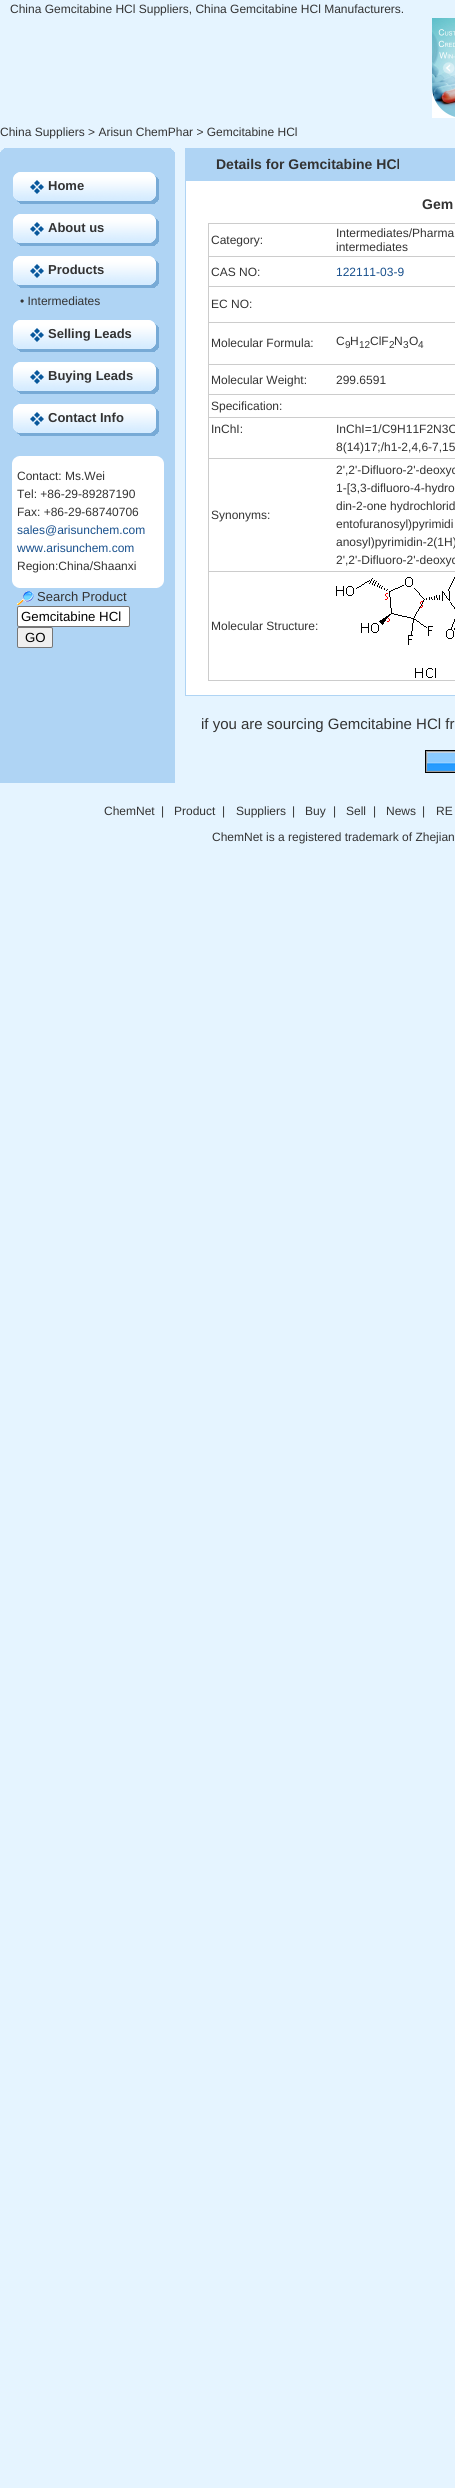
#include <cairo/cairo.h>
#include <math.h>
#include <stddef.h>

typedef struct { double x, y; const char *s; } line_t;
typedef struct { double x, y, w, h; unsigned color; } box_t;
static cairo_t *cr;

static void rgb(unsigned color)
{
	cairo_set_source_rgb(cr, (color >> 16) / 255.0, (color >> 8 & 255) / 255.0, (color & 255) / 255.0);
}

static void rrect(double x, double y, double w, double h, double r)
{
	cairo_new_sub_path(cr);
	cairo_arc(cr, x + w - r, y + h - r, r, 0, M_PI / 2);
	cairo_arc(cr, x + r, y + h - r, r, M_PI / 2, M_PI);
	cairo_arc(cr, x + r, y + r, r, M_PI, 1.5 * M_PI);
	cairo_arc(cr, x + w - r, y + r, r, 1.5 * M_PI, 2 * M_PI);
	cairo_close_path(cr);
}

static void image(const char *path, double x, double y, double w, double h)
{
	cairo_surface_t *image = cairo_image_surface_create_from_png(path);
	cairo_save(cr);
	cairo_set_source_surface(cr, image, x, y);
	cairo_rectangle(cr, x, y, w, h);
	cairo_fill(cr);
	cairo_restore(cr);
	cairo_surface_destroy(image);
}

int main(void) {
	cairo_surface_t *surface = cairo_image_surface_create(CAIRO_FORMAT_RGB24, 455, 2488);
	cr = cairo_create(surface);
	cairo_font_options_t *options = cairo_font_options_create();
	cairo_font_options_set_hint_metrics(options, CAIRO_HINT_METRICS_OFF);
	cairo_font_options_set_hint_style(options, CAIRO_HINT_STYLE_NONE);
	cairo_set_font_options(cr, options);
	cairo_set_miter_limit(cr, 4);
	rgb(0xe5f4ff);
	cairo_paint(cr);
	image("img/1.png", 432, 18, 23, 100);
	rgb(0xafd4f4);
	cairo_rectangle(cr, 0, 152, 175, 631);
	cairo_fill(cr);
	image("img/2.png", 0, 148, 175, 4);
	image("img/3.png", 13, 172, 146, 32);
	image("img/3.png", 13, 214, 146, 32);
	image("img/3.png", 13, 256, 146, 32);
	image("img/3.png", 13, 320, 146, 32);
	image("img/3.png", 13, 362, 146, 32);
	image("img/3.png", 13, 404, 146, 32);
	image("img/4.png", 12, 456, 152, 11);
	rgb(0xffffff);
	cairo_rectangle(cr, 12, 467, 152, 108);
	cairo_fill(cr);
	image("img/5.png", 12, 575, 152, 13);
	image("img/6.png", 17, 591, 17, 14);
	rrect(17.5, 606.5, 112, 20, 1.5);
	cairo_fill_preserve(cr);
	rgb(0x767676);
	cairo_set_line_width(cr, 1);
	cairo_stroke(cr);
	rgb(0xefefef);
	rrect(17.5, 627.5, 35, 20, 1.5);
	cairo_fill_preserve(cr);
	rgb(0x767676);
	cairo_stroke(cr);
	cairo_rectangle(cr, 185.5, 148.5, 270, 547);
	rgb(0xafd4f4);
	cairo_stroke(cr);
	{
		static const box_t items[] = {
			{186, 149, 269, 32, 0xafd4f4},
			{186, 181, 269, 514, 0xffffff},
			{208, 223, 247, 458, 0xcccccc},
			{209, 224, 246, 32, 0xffffff},
			{209, 257, 246, 29, 0xffffff},
			{209, 287, 246, 35, 0xffffff},
			{209, 323, 246, 41, 0xffffff},
			{209, 365, 246, 29, 0xffffff},
			{209, 395, 246, 22, 0xffffff},
			{209, 418, 246, 40, 0xffffff},
			{209, 459, 246, 112, 0xffffff},
			{209, 572, 246, 108, 0xffffff},
		};
		for (size_t i = 0; i < sizeof items / sizeof *items; i++) {
			rgb(items[i].color);
			cairo_rectangle(cr, items[i].x, items[i].y, items[i].w, items[i].h);
			cairo_fill(cr);
		}
	}
	image("img/7.png", 336, 577, 119, 101);
	image("img/8.png", 425, 750, 30, 23);
	cairo_select_font_face(cr, "Liberation Sans", CAIRO_FONT_SLANT_NORMAL, CAIRO_FONT_WEIGHT_NORMAL);
	cairo_set_font_size(cr, 12);
	rgb(0x333333);
	cairo_move_to(cr, 10, 13);
	cairo_show_text(cr, "China Gemcitabine HCl Suppliers, China Gemcitabine HCl Manufacturers.");
	cairo_move_to(cr, 0, 136);
	cairo_show_text(cr, "China Suppliers > Arisun ChemPhar > Gemcitabine HCl");
	cairo_select_font_face(cr, "Liberation Sans", CAIRO_FONT_SLANT_NORMAL, CAIRO_FONT_WEIGHT_BOLD);
	cairo_set_font_size(cr, 13);
	{
		static const line_t items[] = {
			{48, 190, "Home"},
			{48, 232, "About us"},
			{48, 274, "Products"},
		};
		for (size_t i = 0; i < sizeof items / sizeof *items; i++) {
			cairo_move_to(cr, items[i].x, items[i].y);
			cairo_show_text(cr, items[i].s);
		}
	}
	cairo_select_font_face(cr, "Liberation Sans", CAIRO_FONT_SLANT_NORMAL, CAIRO_FONT_WEIGHT_NORMAL);
	cairo_set_font_size(cr, 12);
	cairo_move_to(cr, 20, 305);
	cairo_show_text(cr, "• Intermediates");
	cairo_select_font_face(cr, "Liberation Sans", CAIRO_FONT_SLANT_NORMAL, CAIRO_FONT_WEIGHT_BOLD);
	cairo_set_font_size(cr, 13);
	{
		static const line_t items[] = {
			{48, 338, "Selling Leads"},
			{48, 380, "Buying Leads"},
			{48, 422, "Contact Info"},
		};
		for (size_t i = 0; i < sizeof items / sizeof *items; i++) {
			cairo_move_to(cr, items[i].x, items[i].y);
			cairo_show_text(cr, items[i].s);
		}
	}
	cairo_select_font_face(cr, "Liberation Sans", CAIRO_FONT_SLANT_NORMAL, CAIRO_FONT_WEIGHT_NORMAL);
	cairo_set_font_size(cr, 12);
	{
		static const line_t items[] = {
			{17, 480, "Contact: Ms.Wei"},
			{17, 498, "Tel: +86-29-89287190"},
			{17, 516, "Fax: +86-29-68740706"},
		};
		for (size_t i = 0; i < sizeof items / sizeof *items; i++) {
			cairo_move_to(cr, items[i].x, items[i].y);
			cairo_show_text(cr, items[i].s);
		}
	}
	rgb(0x174f8c);
	cairo_move_to(cr, 17, 534);
	cairo_show_text(cr, "sales@arisunchem.com");
	cairo_move_to(cr, 17, 552);
	cairo_show_text(cr, "www.arisunchem.com");
	rgb(0x333333);
	cairo_move_to(cr, 17, 570);
	cairo_show_text(cr, "Region:China/Shaanxi");
	cairo_set_font_size(cr, 13);
	cairo_move_to(cr, 37, 601);
	cairo_show_text(cr, "Search Product");
	cairo_set_font_size(cr, 13.25);
	rgb(0x000000);
	cairo_move_to(cr, 21, 621);
	cairo_show_text(cr, "Gemcitabine HCl");
	cairo_move_to(cr, 25, 642);
	cairo_show_text(cr, "GO");
	cairo_select_font_face(cr, "Liberation Sans", CAIRO_FONT_SLANT_NORMAL, CAIRO_FONT_WEIGHT_BOLD);
	cairo_set_font_size(cr, 14);
	rgb(0x333333);
	cairo_move_to(cr, 216, 169);
	cairo_show_text(cr, "Details for Gemcitabine HCl");
	cairo_move_to(cr, 422, 209);
	cairo_show_text(cr, "Gem");
	cairo_select_font_face(cr, "Liberation Sans", CAIRO_FONT_SLANT_NORMAL, CAIRO_FONT_WEIGHT_NORMAL);
	cairo_set_font_size(cr, 12);
	{
		static const line_t items[] = {
			{211, 244, "Category:"},
			{336, 237, "Intermediates/Pharma"},
			{336, 251, "intermediates"},
			{211, 276, "CAS NO:"},
		};
		for (size_t i = 0; i < sizeof items / sizeof *items; i++) {
			cairo_move_to(cr, items[i].x, items[i].y);
			cairo_show_text(cr, items[i].s);
		}
	}
	rgb(0x174f8c);
	cairo_move_to(cr, 336, 276);
	cairo_show_text(cr, "122111-03-9");
	rgb(0x333333);
	{
		static const line_t items[] = {
			{211, 308, "EC NO:"},
			{211, 347, "Molecular Formula:"},
			{336, 345, "C"},
		};
		for (size_t i = 0; i < sizeof items / sizeof *items; i++) {
			cairo_move_to(cr, items[i].x, items[i].y);
			cairo_show_text(cr, items[i].s);
		}
	}
	cairo_set_font_size(cr, 10);
	cairo_move_to(cr, 345, 348);
	cairo_show_text(cr, "9");
	cairo_set_font_size(cr, 12);
	cairo_move_to(cr, 350, 345);
	cairo_show_text(cr, "H");
	cairo_set_font_size(cr, 10);
	cairo_move_to(cr, 359, 348);
	cairo_show_text(cr, "12");
	cairo_set_font_size(cr, 12);
	cairo_move_to(cr, 370, 345);
	cairo_show_text(cr, "ClF");
	cairo_set_font_size(cr, 10);
	cairo_move_to(cr, 389, 348);
	cairo_show_text(cr, "2");
	cairo_set_font_size(cr, 12);
	cairo_move_to(cr, 394, 345);
	cairo_show_text(cr, "N");
	cairo_set_font_size(cr, 10);
	cairo_move_to(cr, 403, 348);
	cairo_show_text(cr, "3");
	cairo_set_font_size(cr, 12);
	cairo_move_to(cr, 409, 345);
	cairo_show_text(cr, "O");
	cairo_set_font_size(cr, 10);
	cairo_move_to(cr, 418, 348);
	cairo_show_text(cr, "4");
	cairo_set_font_size(cr, 12);
	{
		static const line_t items[] = {
			{211, 384, "Molecular Weight:"},
			{336, 384, "299.6591"},
			{211, 410, "Specification:"},
			{211, 433, "InChI:"},
			{336, 433, "InChI=1/C9H11F2N3O"},
			{336, 451, "8(14)17;/h1-2,4,6-7,15"},
			{211, 519, "Synonyms:"},
			{336, 474, "2',2'-Difluoro-2'-deoxyc"},
			{336, 492, "1-[3,3-difluoro-4-hydro"},
			{336, 510, "din-2-one hydrochlorid"},
			{336, 528, "entofuranosyl)pyrimidi"},
			{336, 546, "anosyl)pyrimidin-2(1H)"},
			{336, 564, "2',2'-Difluoro-2'-deoxyc"},
			{211, 630, "Molecular Structure:"},
		};
		for (size_t i = 0; i < sizeof items / sizeof *items; i++) {
			cairo_move_to(cr, items[i].x, items[i].y);
			cairo_show_text(cr, items[i].s);
		}
	}
	cairo_set_font_size(cr, 15);
	cairo_move_to(cr, 201, 729);
	cairo_show_text(cr, "if you are sourcing Gemcitabine HCl fr");
	cairo_set_font_size(cr, 12);
	{
		static const line_t items[] = {
			{104, 815, "ChemNet"},
			{161, 815, "|"},
			{174, 815, "Product"},
			{222, 815, "|"},
			{236, 815, "Suppliers"},
			{292, 815, "|"},
			{305, 815, "Buy"},
			{333, 815, "|"},
			{346, 815, "Sell"},
			{373, 815, "|"},
			{386, 815, "News"},
			{422, 815, "|"},
			{436, 815, "RE"},
			{212, 841, "ChemNet is a registered trademark of Zhejian"},
		};
		for (size_t i = 0; i < sizeof items / sizeof *items; i++) {
			cairo_move_to(cr, items[i].x, items[i].y);
			cairo_show_text(cr, items[i].s);
		}
	}
	cairo_surface_write_to_png(surface, "page.png");
	cairo_font_options_destroy(options);
	cairo_destroy(cr);
	cairo_surface_destroy(surface);
	return 0;
}
